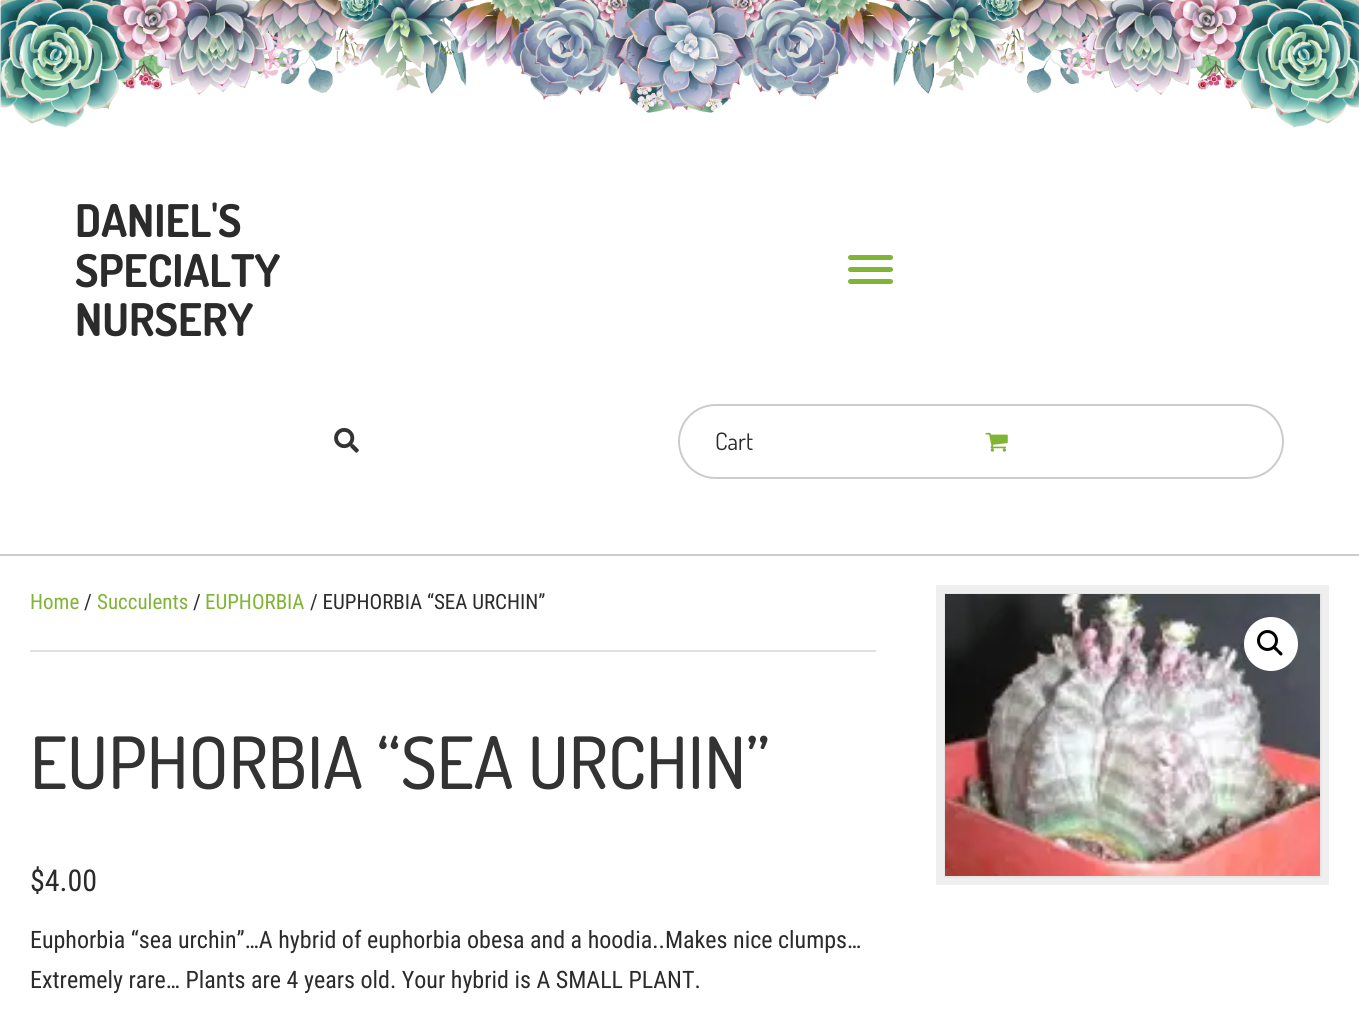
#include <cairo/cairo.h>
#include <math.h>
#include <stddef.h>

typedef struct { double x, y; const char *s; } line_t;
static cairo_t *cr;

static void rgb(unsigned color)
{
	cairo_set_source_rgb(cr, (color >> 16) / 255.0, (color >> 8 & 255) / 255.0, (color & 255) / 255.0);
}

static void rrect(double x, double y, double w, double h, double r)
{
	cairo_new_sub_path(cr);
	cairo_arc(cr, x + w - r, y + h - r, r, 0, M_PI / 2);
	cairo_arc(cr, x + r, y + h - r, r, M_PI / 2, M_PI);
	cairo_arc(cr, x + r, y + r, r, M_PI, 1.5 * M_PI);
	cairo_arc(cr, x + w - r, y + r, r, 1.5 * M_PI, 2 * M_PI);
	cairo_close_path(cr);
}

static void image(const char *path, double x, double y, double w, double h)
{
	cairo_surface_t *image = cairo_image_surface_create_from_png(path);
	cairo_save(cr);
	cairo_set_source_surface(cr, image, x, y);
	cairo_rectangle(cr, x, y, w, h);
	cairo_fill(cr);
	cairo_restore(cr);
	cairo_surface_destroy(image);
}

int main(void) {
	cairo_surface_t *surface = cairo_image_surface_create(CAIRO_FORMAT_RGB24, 1359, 1027);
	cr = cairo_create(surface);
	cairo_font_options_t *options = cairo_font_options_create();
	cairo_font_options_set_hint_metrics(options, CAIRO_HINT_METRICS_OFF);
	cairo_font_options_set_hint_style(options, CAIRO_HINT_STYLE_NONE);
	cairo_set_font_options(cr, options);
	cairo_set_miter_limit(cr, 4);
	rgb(0xffffff);
	cairo_paint(cr);
	image("img/1.png", 0, 0, 1359, 128);
	rgb(0xcccccc);
	cairo_rectangle(cr, 0, 554, 1359, 2);
	cairo_fill(cr);
	rgb(0x80b435);
	rrect(848, 267, 45, 5, 2.5);
	cairo_fill(cr);
	rrect(848, 255, 45, 5, 2.5);
	cairo_fill(cr);
	rrect(848, 279, 45, 5, 2.5);
	cairo_fill(cr);
	image("img/2.png", 334, 428, 25, 25);
	rrect(679, 405, 604, 73, 36.5);
	rgb(0xcccccc);
	cairo_stroke(cr);
	image("img/3.png", 985, 432, 23, 20);
	rgb(0xe0e0e0);
	cairo_rectangle(cr, 30, 650, 846, 2);
	cairo_fill(cr);
	rgb(0xefefef);
	cairo_rectangle(cr, 936, 585, 393, 300);
	cairo_fill(cr);
	cairo_rectangle(cr, 945, 594, 376, 283);
	rgb(0xe6e6e6);
	cairo_stroke(cr);
	image("img/4.png", 945, 594, 375, 282);
	rgb(0xffffff);
	cairo_arc(cr, 1271, 644, 27, 0, 2 * M_PI);
	cairo_fill(cr);
	cairo_arc(cr, 1267.5, 640.5, 9, 0, 2 * M_PI);
	rgb(0x000000);
	cairo_set_line_width(cr, 3);
	cairo_stroke(cr);
	cairo_new_path(cr);
	cairo_move_to(cr, 1273.5, 647);
	cairo_curve_to(cr, 1275.5, 645, 1278, 649, 1279, 650);
	cairo_curve_to(cr, 1280, 651, 1284, 653.5, 1282, 655);
	cairo_curve_to(cr, 1280.5, 657, 1278, 653, 1277, 652);
	cairo_curve_to(cr, 1276, 651, 1272, 648.5, 1273.5, 647);
	cairo_close_path(cr);
	cairo_fill(cr);
	cairo_select_font_face(cr, "Dosis", CAIRO_FONT_SLANT_NORMAL, CAIRO_FONT_WEIGHT_BOLD);
	cairo_set_font_size(cr, 45);
	rgb(0x2b2b2b);
	{
		static const line_t items[] = {
			{75, 237, "DANIEL'S"},
			{75, 287, "SPECIALTY"},
			{75, 336, "NURSERY"},
		};
		for (size_t i = 0; i < sizeof items / sizeof *items; i++) {
			cairo_move_to(cr, items[i].x, items[i].y);
			cairo_show_text(cr, items[i].s);
		}
	}
	cairo_select_font_face(cr, "Dosis", CAIRO_FONT_SLANT_NORMAL, CAIRO_FONT_WEIGHT_NORMAL);
	cairo_set_font_size(cr, 24);
	cairo_move_to(cr, 715, 450);
	cairo_show_text(cr, "Cart");
	cairo_select_font_face(cr, "Roboto Condensed", CAIRO_FONT_SLANT_NORMAL, CAIRO_FONT_WEIGHT_NORMAL);
	cairo_set_font_size(cr, 21);
	rgb(0x80b435);
	cairo_move_to(cr, 30, 609);
	cairo_show_text(cr, "Home");
	rgb(0x2b2b2b);
	cairo_move_to(cr, 84, 609);
	cairo_show_text(cr, "/");
	rgb(0x80b435);
	cairo_move_to(cr, 97, 609);
	cairo_show_text(cr, "Succulents");
	rgb(0x2b2b2b);
	cairo_move_to(cr, 193, 609);
	cairo_show_text(cr, "/");
	rgb(0x80b435);
	cairo_move_to(cr, 205, 609);
	cairo_show_text(cr, "EUPHORBIA");
	rgb(0x2b2b2b);
	cairo_move_to(cr, 310, 609);
	cairo_show_text(cr, "/ EUPHORBIA “SEA URCHIN”");
	cairo_select_font_face(cr, "Dosis Medium", CAIRO_FONT_SLANT_NORMAL, CAIRO_FONT_WEIGHT_NORMAL);
	cairo_set_font_size(cr, 72);
	rgb(0x333333);
	cairo_move_to(cr, 30, 789);
	cairo_show_text(cr, "EUPHORBIA “SEA URCHIN”");
	cairo_select_font_face(cr, "Roboto Condensed", CAIRO_FONT_SLANT_NORMAL, CAIRO_FONT_WEIGHT_NORMAL);
	cairo_set_font_size(cr, 30);
	rgb(0x2b2b2b);
	cairo_move_to(cr, 30, 891);
	cairo_show_text(cr, "$4.00");
	cairo_set_font_size(cr, 24);
	cairo_move_to(cr, 30, 948);
	cairo_show_text(cr, "Euphorbia “sea urchin”…A hybrid of euphorbia obesa and a hoodia..Makes nice clumps…");
	cairo_move_to(cr, 30, 988);
	cairo_show_text(cr, "Extremely rare… Plants are 4 years old. Your hybrid is A SMALL PLANT.");
	cairo_surface_write_to_png(surface, "page.png");
	cairo_font_options_destroy(options);
	cairo_destroy(cr);
	cairo_surface_destroy(surface);
	return 0;
}
